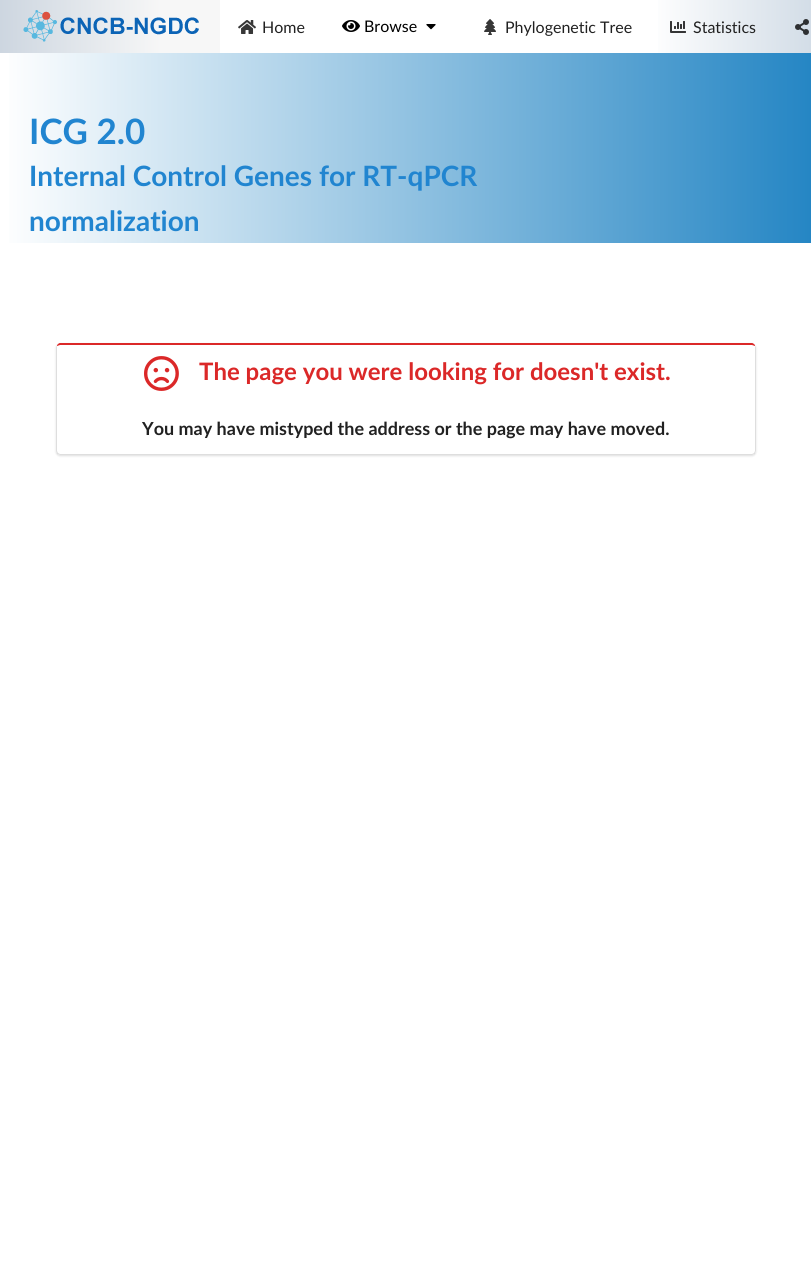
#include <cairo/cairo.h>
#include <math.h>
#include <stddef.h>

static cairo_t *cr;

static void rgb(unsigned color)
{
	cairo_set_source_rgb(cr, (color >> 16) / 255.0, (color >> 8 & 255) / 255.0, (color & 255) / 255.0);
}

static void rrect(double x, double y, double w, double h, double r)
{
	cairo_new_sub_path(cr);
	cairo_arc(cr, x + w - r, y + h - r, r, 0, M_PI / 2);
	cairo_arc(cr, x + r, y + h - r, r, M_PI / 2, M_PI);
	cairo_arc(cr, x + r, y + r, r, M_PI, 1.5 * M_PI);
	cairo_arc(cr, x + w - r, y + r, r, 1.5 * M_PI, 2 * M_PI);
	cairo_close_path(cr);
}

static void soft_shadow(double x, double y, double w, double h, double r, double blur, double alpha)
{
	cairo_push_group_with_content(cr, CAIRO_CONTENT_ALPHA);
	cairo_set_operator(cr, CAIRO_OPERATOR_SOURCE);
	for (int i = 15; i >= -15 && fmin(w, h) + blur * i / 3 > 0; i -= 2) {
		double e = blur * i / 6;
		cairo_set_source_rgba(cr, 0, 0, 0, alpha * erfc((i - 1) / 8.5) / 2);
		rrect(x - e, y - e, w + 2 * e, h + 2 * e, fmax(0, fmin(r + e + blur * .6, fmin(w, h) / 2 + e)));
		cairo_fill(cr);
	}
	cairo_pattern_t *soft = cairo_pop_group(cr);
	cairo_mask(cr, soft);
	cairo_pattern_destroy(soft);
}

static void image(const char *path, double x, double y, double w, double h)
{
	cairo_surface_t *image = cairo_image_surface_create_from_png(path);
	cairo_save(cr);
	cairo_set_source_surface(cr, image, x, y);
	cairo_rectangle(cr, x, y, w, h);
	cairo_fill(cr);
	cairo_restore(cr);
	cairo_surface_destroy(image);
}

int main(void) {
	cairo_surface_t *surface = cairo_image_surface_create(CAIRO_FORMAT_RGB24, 811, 1266);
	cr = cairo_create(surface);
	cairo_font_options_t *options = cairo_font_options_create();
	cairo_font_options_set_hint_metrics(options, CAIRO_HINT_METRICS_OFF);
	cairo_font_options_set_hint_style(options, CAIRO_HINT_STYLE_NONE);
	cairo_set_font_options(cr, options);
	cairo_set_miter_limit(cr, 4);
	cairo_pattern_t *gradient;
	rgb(0xffffff);
	cairo_paint(cr);
	gradient = cairo_pattern_create_linear(0, 27, 811, 26);
	cairo_pattern_add_color_stop_rgba(gradient, 0, 0.827, 0.867, 0.906, 1);
	cairo_pattern_add_color_stop_rgba(gradient, 0.2, 1, 1, 1, 1);
	cairo_pattern_add_color_stop_rgba(gradient, 0.8, 1, 1, 1, 1);
	cairo_pattern_add_color_stop_rgba(gradient, 1, 0.827, 0.867, 0.906, 1);
	cairo_set_source(cr, gradient);
	cairo_pattern_destroy(gradient);
	cairo_rectangle(cr, 658, 0, 153, 53);
	cairo_fill(cr);
	gradient = cairo_pattern_create_linear(0, 27, 811, 26);
	cairo_pattern_add_color_stop_rgba(gradient, 0, 0.804, 0.839, 0.878, 1);
	cairo_pattern_add_color_stop_rgba(gradient, 0.2, 0.969, 0.969, 0.969, 1);
	cairo_pattern_add_color_stop_rgba(gradient, 0.8, 0.969, 0.969, 0.969, 1);
	cairo_pattern_add_color_stop_rgba(gradient, 1, 0.804, 0.839, 0.878, 1);
	cairo_set_source(cr, gradient);
	cairo_pattern_destroy(gradient);
	cairo_rectangle(cr, 0, 0, 220, 53);
	cairo_fill(cr);
	image("img/1.png", 23, 10, 176, 32);
	image("img/2.png", 238, 20, 18, 14);
	image("img/3.png", 342, 20, 18, 12);
	image("img/4.png", 426, 24, 10, 6);
	image("img/5.png", 484, 19, 12, 16);
	image("img/6.png", 670, 21, 16, 12);
	image("img/7.png", 795, 19, 14, 16);
	gradient = cairo_pattern_create_linear(0, 148, 811, 148);
	cairo_pattern_add_color_stop_rgba(gradient, 0, 1, 1, 1, 1);
	cairo_pattern_add_color_stop_rgba(gradient, 1, 0.145, 0.525, 0.769, 1);
	cairo_set_source(cr, gradient);
	cairo_pattern_destroy(gradient);
	cairo_rectangle(cr, 9, 53, 802, 190);
	cairo_fill(cr);
	rgb(0x222426);
	soft_shadow(56, 344, 700, 112, 4, 1, 0.15);
	rgb(0xffffff);
	rrect(56, 343, 700, 112, 4);
	cairo_fill(cr);
	rgb(0xdb2828);
	cairo_new_path(cr);
	cairo_move_to(cr, 60, 343);
	cairo_curve_to(cr, 59, 343, 58, 344, 57, 345);
	cairo_line_to(cr, 57, 346);
	cairo_line_to(cr, 60, 345);
	cairo_line_to(cr, 752, 345);
	cairo_line_to(cr, 755, 346);
	cairo_line_to(cr, 755, 345);
	cairo_curve_to(cr, 754, 344, 753, 343, 752, 343);
	cairo_close_path(cr);
	cairo_fill(cr);
	rgb(0xdedede);
	cairo_new_path(cr);
	cairo_move_to(cr, 756, 451);
	cairo_line_to(cr, 756, 347);
	cairo_line_to(cr, 755, 345);
	cairo_line_to(cr, 755, 346);
	cairo_curve_to(cr, 755, 347, 755, 425, 755, 434);
	cairo_line_to(cr, 755, 451);
	cairo_line_to(cr, 754, 453);
	cairo_line_to(cr, 755, 454);
	cairo_close_path(cr);
	cairo_fill(cr);
	cairo_set_source_rgba(cr, 0.133, 0.141, 0.149, 0.15);
	cairo_new_path(cr);
	cairo_move_to(cr, 60, 455);
	cairo_line_to(cr, 752, 455);
	cairo_line_to(cr, 755, 454);
	cairo_line_to(cr, 754, 453);
	cairo_line_to(cr, 752, 454);
	cairo_line_to(cr, 60, 454);
	cairo_line_to(cr, 58, 453);
	cairo_line_to(cr, 57, 454);
	cairo_close_path(cr);
	cairo_fill(cr);
	cairo_new_path(cr);
	cairo_move_to(cr, 56, 347);
	cairo_line_to(cr, 56, 451);
	cairo_line_to(cr, 57, 454);
	cairo_line_to(cr, 58, 453);
	cairo_line_to(cr, 57, 451);
	cairo_line_to(cr, 57, 434);
	cairo_curve_to(cr, 57, 425, 57, 347, 57, 346);
	cairo_line_to(cr, 57, 345);
	cairo_close_path(cr);
	cairo_fill(cr);
	image("img/8.png", 144, 356, 35, 35);
	cairo_select_font_face(cr, "Lato", CAIRO_FONT_SLANT_NORMAL, CAIRO_FONT_WEIGHT_NORMAL);
	cairo_set_font_size(cr, 16);
	rgb(0x212121);
	cairo_move_to(cr, 262, 33);
	cairo_show_text(cr, "Home");
	rgb(0x000000);
	cairo_move_to(cr, 364, 32);
	cairo_show_text(cr, "Browse");
	rgb(0x212121);
	cairo_move_to(cr, 505, 33);
	cairo_show_text(cr, "Phylogenetic Tree");
	cairo_move_to(cr, 693, 33);
	cairo_show_text(cr, "Statistics");
	cairo_select_font_face(cr, "Lato", CAIRO_FONT_SLANT_NORMAL, CAIRO_FONT_WEIGHT_BOLD);
	cairo_set_font_size(cr, 35);
	rgb(0x2185d0);
	cairo_move_to(cr, 29, 144);
	cairo_show_text(cr, "ICG 2.0");
	cairo_set_font_size(cr, 28);
	cairo_move_to(cr, 29, 186);
	cairo_show_text(cr, "Internal Control Genes for RT-qPCR");
	cairo_move_to(cr, 29, 231);
	cairo_show_text(cr, "normalization");
	cairo_set_font_size(cr, 24);
	rgb(0xdb2828);
	cairo_move_to(cr, 199, 380);
	cairo_show_text(cr, "The page you were looking for doesn't exist.");
	cairo_set_font_size(cr, 18);
	rgb(0x212121);
	cairo_move_to(cr, 142, 435);
	cairo_show_text(cr, "You may have mistyped the address or the page may have moved.");
	cairo_surface_write_to_png(surface, "page.png");
	cairo_font_options_destroy(options);
	cairo_destroy(cr);
	cairo_surface_destroy(surface);
	return 0;
}
